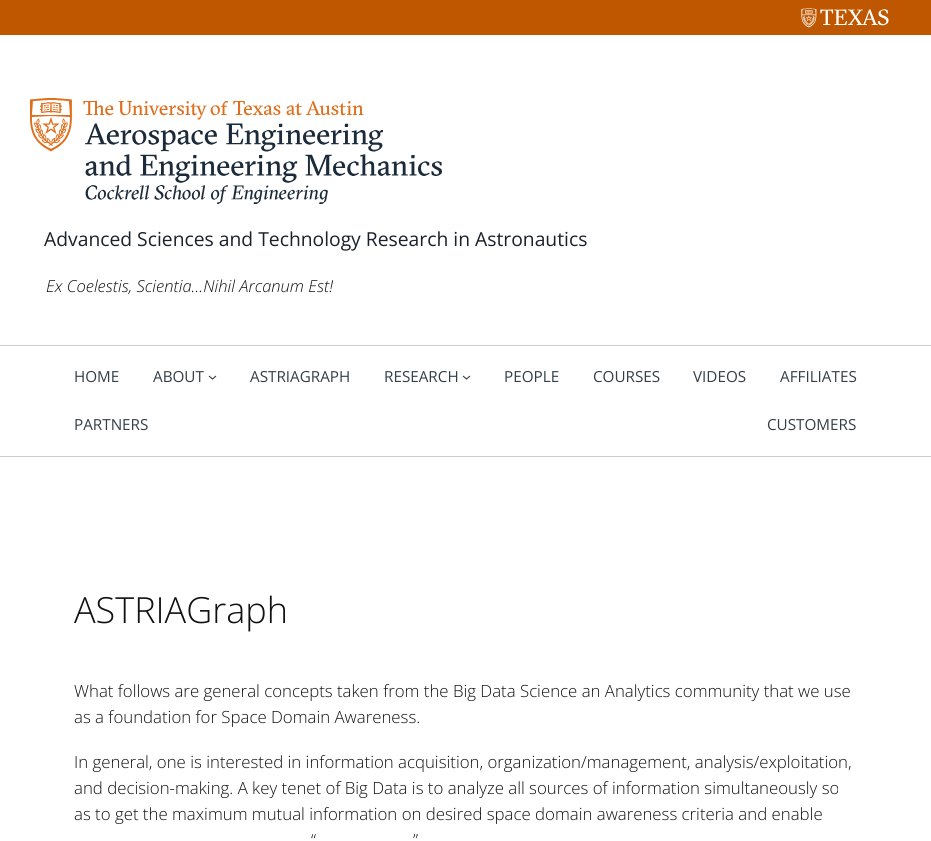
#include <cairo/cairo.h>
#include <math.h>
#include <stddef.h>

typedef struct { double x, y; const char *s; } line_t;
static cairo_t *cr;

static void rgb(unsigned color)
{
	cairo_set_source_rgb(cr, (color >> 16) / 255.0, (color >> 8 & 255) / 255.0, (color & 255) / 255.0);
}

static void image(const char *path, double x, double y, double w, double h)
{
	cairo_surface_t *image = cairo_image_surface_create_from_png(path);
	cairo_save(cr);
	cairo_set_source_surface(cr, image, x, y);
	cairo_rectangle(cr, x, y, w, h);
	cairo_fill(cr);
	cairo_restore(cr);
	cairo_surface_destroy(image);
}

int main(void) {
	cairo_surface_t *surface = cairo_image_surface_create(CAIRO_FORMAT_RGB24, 931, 841);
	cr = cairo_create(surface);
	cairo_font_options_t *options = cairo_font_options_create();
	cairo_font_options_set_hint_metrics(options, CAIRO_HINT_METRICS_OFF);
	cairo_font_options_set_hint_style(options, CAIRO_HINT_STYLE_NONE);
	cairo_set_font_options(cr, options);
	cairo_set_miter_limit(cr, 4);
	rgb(0xffffff);
	cairo_paint(cr);
	rgb(0xbf5700);
	cairo_rectangle(cr, 0, 0, 931, 35);
	cairo_fill(cr);
	image("img/1.png", 801, 8, 88, 20);
	image("img/2.png", 30, 98, 412, 106);
	rgb(0xcbcfd2);
	cairo_rectangle(cr, 0, 345, 931, 1);
	cairo_fill(cr);
	cairo_rectangle(cr, 0, 456, 931, 1);
	cairo_fill(cr);
	cairo_new_path(cr);
	cairo_move_to(cr, 209, 376);
	cairo_line_to(cr, 212.5, 379);
	cairo_line_to(cr, 216, 376);
	rgb(0x333f48);
	cairo_set_line_width(cr, 1.1);
	cairo_stroke(cr);
	cairo_new_path(cr);
	cairo_move_to(cr, 463, 376);
	cairo_line_to(cr, 466.5, 379);
	cairo_line_to(cr, 470, 376);
	cairo_stroke(cr);
	cairo_select_font_face(cr, "Open Sans", CAIRO_FONT_SLANT_NORMAL, CAIRO_FONT_WEIGHT_NORMAL);
	cairo_set_font_size(cr, 19.3);
	rgb(0x1a212b);
	cairo_move_to(cr, 44, 246);
	cairo_show_text(cr, "Advanced Sciences and Technology Research in Astronautics");
	cairo_select_font_face(cr, "Open Sans Light", CAIRO_FONT_SLANT_ITALIC, CAIRO_FONT_WEIGHT_NORMAL);
	cairo_set_font_size(cr, 16.5);
	rgb(0x111111);
	cairo_move_to(cr, 46, 292);
	cairo_show_text(cr, "Ex Coelestis, Scientia…Nihil Arcanum Est!");
	cairo_select_font_face(cr, "Open Sans", CAIRO_FONT_SLANT_NORMAL, CAIRO_FONT_WEIGHT_NORMAL);
	cairo_set_font_size(cr, 15.25);
	rgb(0x333f48);
	{
		static const line_t items[] = {
			{74, 382, "HOME"},
			{153, 382, "ABOUT"},
			{250, 382, "ASTRIAGRAPH"},
			{384, 382, "RESEARCH"},
			{504, 382, "PEOPLE"},
			{593, 382, "COURSES"},
			{693, 382, "VIDEOS"},
			{780, 382, "AFFILIATES"},
			{74, 430, "PARTNERS"},
			{767, 430, "CUSTOMERS"},
		};
		for (size_t i = 0; i < sizeof items / sizeof *items; i++) {
			cairo_move_to(cr, items[i].x, items[i].y);
			cairo_show_text(cr, items[i].s);
		}
	}
	cairo_select_font_face(cr, "Open Sans Light", CAIRO_FONT_SLANT_NORMAL, CAIRO_FONT_WEIGHT_NORMAL);
	cairo_set_font_size(cr, 36);
	rgb(0x111111);
	cairo_move_to(cr, 74, 623);
	cairo_show_text(cr, "ASTRIAGraph");
	cairo_set_font_size(cr, 16.8);
	{
		static const line_t items[] = {
			{74, 697, "What follows are general concepts taken from the Big Data Science an Analytics community that we use"},
			{74, 723, "as a foundation for Space Domain Awareness."},
			{74, 768, "In general, one is interested in information acquisition, organization/management, analysis/exploitation,"},
			{74, 794, "and decision-making. A key tenet of Big Data is to analyze all sources of information simultaneously so"},
			{74, 820, "as to get the maximum mutual information on desired space domain awareness criteria and enable"},
			{311, 846, "“"},
			{413, 846, "”"},
		};
		for (size_t i = 0; i < sizeof items / sizeof *items; i++) {
			cairo_move_to(cr, items[i].x, items[i].y);
			cairo_show_text(cr, items[i].s);
		}
	}
	cairo_surface_write_to_png(surface, "page.png");
	cairo_font_options_destroy(options);
	cairo_destroy(cr);
	cairo_surface_destroy(surface);
	return 0;
}
